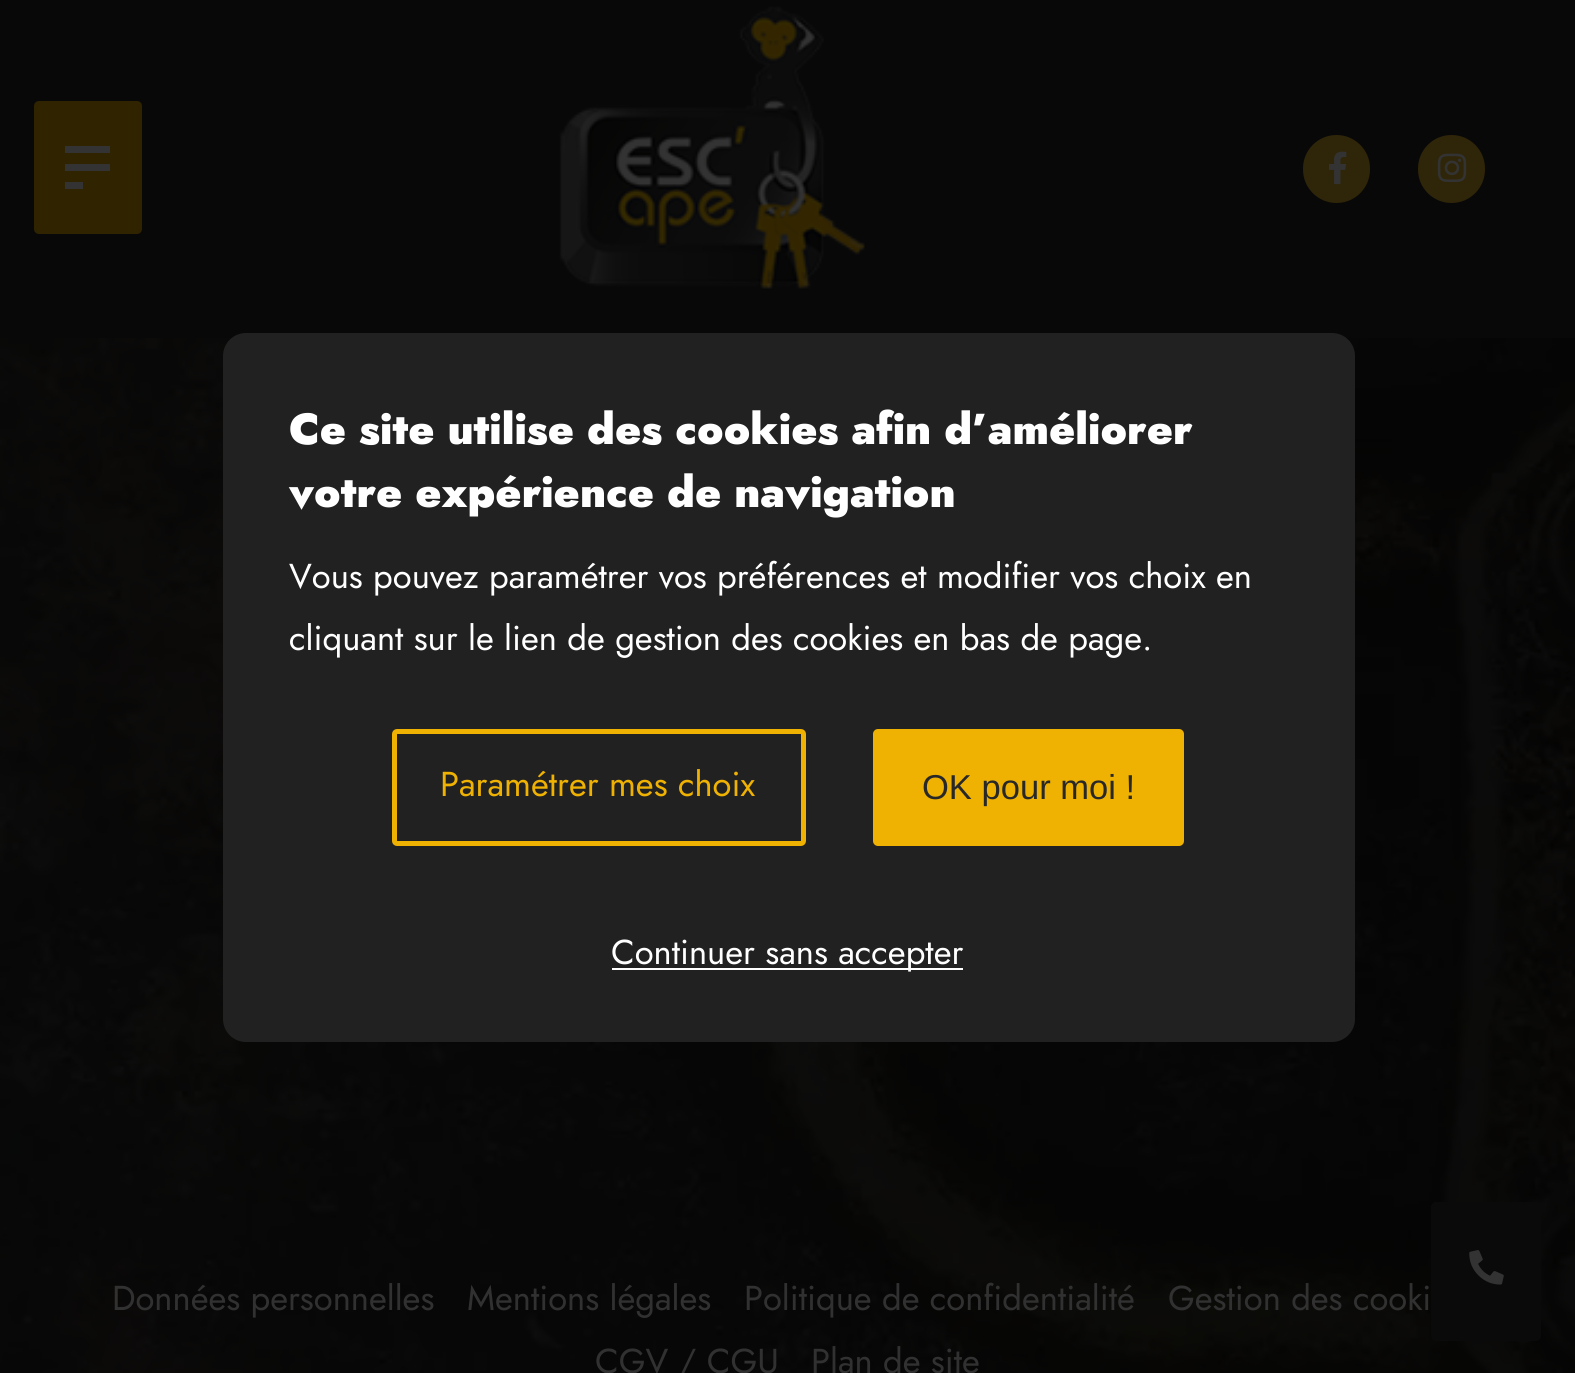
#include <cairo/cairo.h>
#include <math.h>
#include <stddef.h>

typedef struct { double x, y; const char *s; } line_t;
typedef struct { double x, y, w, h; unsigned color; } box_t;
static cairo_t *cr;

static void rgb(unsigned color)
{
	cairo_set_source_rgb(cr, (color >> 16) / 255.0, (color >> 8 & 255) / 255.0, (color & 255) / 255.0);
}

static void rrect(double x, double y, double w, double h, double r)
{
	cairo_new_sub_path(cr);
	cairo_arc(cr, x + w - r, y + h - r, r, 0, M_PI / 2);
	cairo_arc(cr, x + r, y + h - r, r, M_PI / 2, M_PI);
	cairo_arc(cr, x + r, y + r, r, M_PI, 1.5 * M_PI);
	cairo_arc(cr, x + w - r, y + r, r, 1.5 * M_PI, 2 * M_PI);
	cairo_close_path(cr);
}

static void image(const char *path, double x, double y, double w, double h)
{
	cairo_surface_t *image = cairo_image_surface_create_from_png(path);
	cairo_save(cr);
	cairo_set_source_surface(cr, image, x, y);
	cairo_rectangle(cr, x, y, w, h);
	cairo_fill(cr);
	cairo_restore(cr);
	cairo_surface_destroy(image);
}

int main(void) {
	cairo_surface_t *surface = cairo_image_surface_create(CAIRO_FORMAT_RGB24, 1575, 1373);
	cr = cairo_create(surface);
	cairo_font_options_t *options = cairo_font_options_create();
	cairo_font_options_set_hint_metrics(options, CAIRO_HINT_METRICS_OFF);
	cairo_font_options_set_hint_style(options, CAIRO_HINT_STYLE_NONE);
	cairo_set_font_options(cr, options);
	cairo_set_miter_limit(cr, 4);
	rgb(0xffffff);
	cairo_paint(cr);
	rgb(0x080808);
	cairo_rectangle(cr, 0, 0, 1575, 338);
	cairo_fill(cr);
	image("img/5.png", 0, 338, 1575, 1035);
	rgb(0x212121);
	rrect(223, 333, 1132, 709, 23);
	cairo_fill(cr);
	rrect(394.5, 731.5, 409, 112, 2.5);
	rgb(0xefb102);
	cairo_set_line_width(cr, 5);
	cairo_stroke(cr);
	rrect(873, 729, 311, 117, 5);
	cairo_fill(cr);
	rgb(0xffffff);
	cairo_rectangle(cr, 612, 968, 351, 2);
	cairo_fill(cr);
	rgb(0x302300);
	rrect(34, 101, 108, 133, 5);
	cairo_fill(cr);
	{
		static const box_t items[] = {
			{65, 146, 45, 7, 0x333333},
			{65, 164, 45, 7, 0x333333},
			{65, 182, 18, 7, 0x333333},
		};
		for (size_t i = 0; i < sizeof items / sizeof *items; i++) {
			rgb(items[i].color);
			cairo_rectangle(cr, items[i].x, items[i].y, items[i].w, items[i].h);
			cairo_fill(cr);
		}
	}
	image("img/1.png", 559, 6, 306, 283);
	rgb(0x2f2509);
	rrect(1303, 135, 67, 68, 33.5);
	cairo_fill(cr);
	image("img/2.png", 1328, 151, 19, 34);
	rrect(1418, 135, 67, 68, 33.5);
	cairo_fill(cr);
	image("img/3.png", 1437, 153, 30, 29);
	rgb(0x0a0a0a);
	rrect(1431, 1202, 110, 139, 5);
	cairo_fill(cr);
	image("img/4.png", 1469, 1250, 35, 35);
	cairo_select_font_face(cr, "Jost Black", CAIRO_FONT_SLANT_NORMAL, CAIRO_FONT_WEIGHT_NORMAL);
	cairo_set_font_size(cr, 43.2);
	rgb(0xffffff);
	cairo_move_to(cr, 289, 444);
	cairo_show_text(cr, "Ce site utilise des cookies afin d’améliorer");
	cairo_move_to(cr, 289, 507);
	cairo_show_text(cr, "votre expérience de navigation");
	cairo_select_font_face(cr, "Jost", CAIRO_FONT_SLANT_NORMAL, CAIRO_FONT_WEIGHT_NORMAL);
	cairo_set_font_size(cr, 34.55);
	cairo_move_to(cr, 289, 588);
	cairo_show_text(cr, "Vous pouvez paramétrer vos préférences et modifier vos choix en");
	cairo_move_to(cr, 289, 650);
	cairo_show_text(cr, "cliquant sur le lien de gestion des cookies en bas de page.");
	rgb(0xefb102);
	cairo_move_to(cr, 440, 796);
	cairo_show_text(cr, "Paramétrer mes choix");
	cairo_select_font_face(cr, "Liberation Sans", CAIRO_FONT_SLANT_NORMAL, CAIRO_FONT_WEIGHT_NORMAL);
	rgb(0x282828);
	cairo_move_to(cr, 922, 799);
	cairo_show_text(cr, "OK pour moi !");
	cairo_select_font_face(cr, "Jost", CAIRO_FONT_SLANT_NORMAL, CAIRO_FONT_WEIGHT_NORMAL);
	rgb(0xffffff);
	cairo_move_to(cr, 611, 964);
	cairo_show_text(cr, "Continuer sans accepter");
	rgb(0x313131);
	{
		static const line_t items[] = {
			{112, 1310, "Données personnelles"},
			{467, 1310, "Mentions légales"},
			{744, 1310, "Politique de confidentialité"},
			{1168, 1310, "Gestion des cooki"},
			{595, 1373, "CGV / CGU"},
			{811, 1373, "Plan de site"},
		};
		for (size_t i = 0; i < sizeof items / sizeof *items; i++) {
			cairo_move_to(cr, items[i].x, items[i].y);
			cairo_show_text(cr, items[i].s);
		}
	}
	cairo_surface_write_to_png(surface, "page.png");
	cairo_font_options_destroy(options);
	cairo_destroy(cr);
	cairo_surface_destroy(surface);
	return 0;
}
